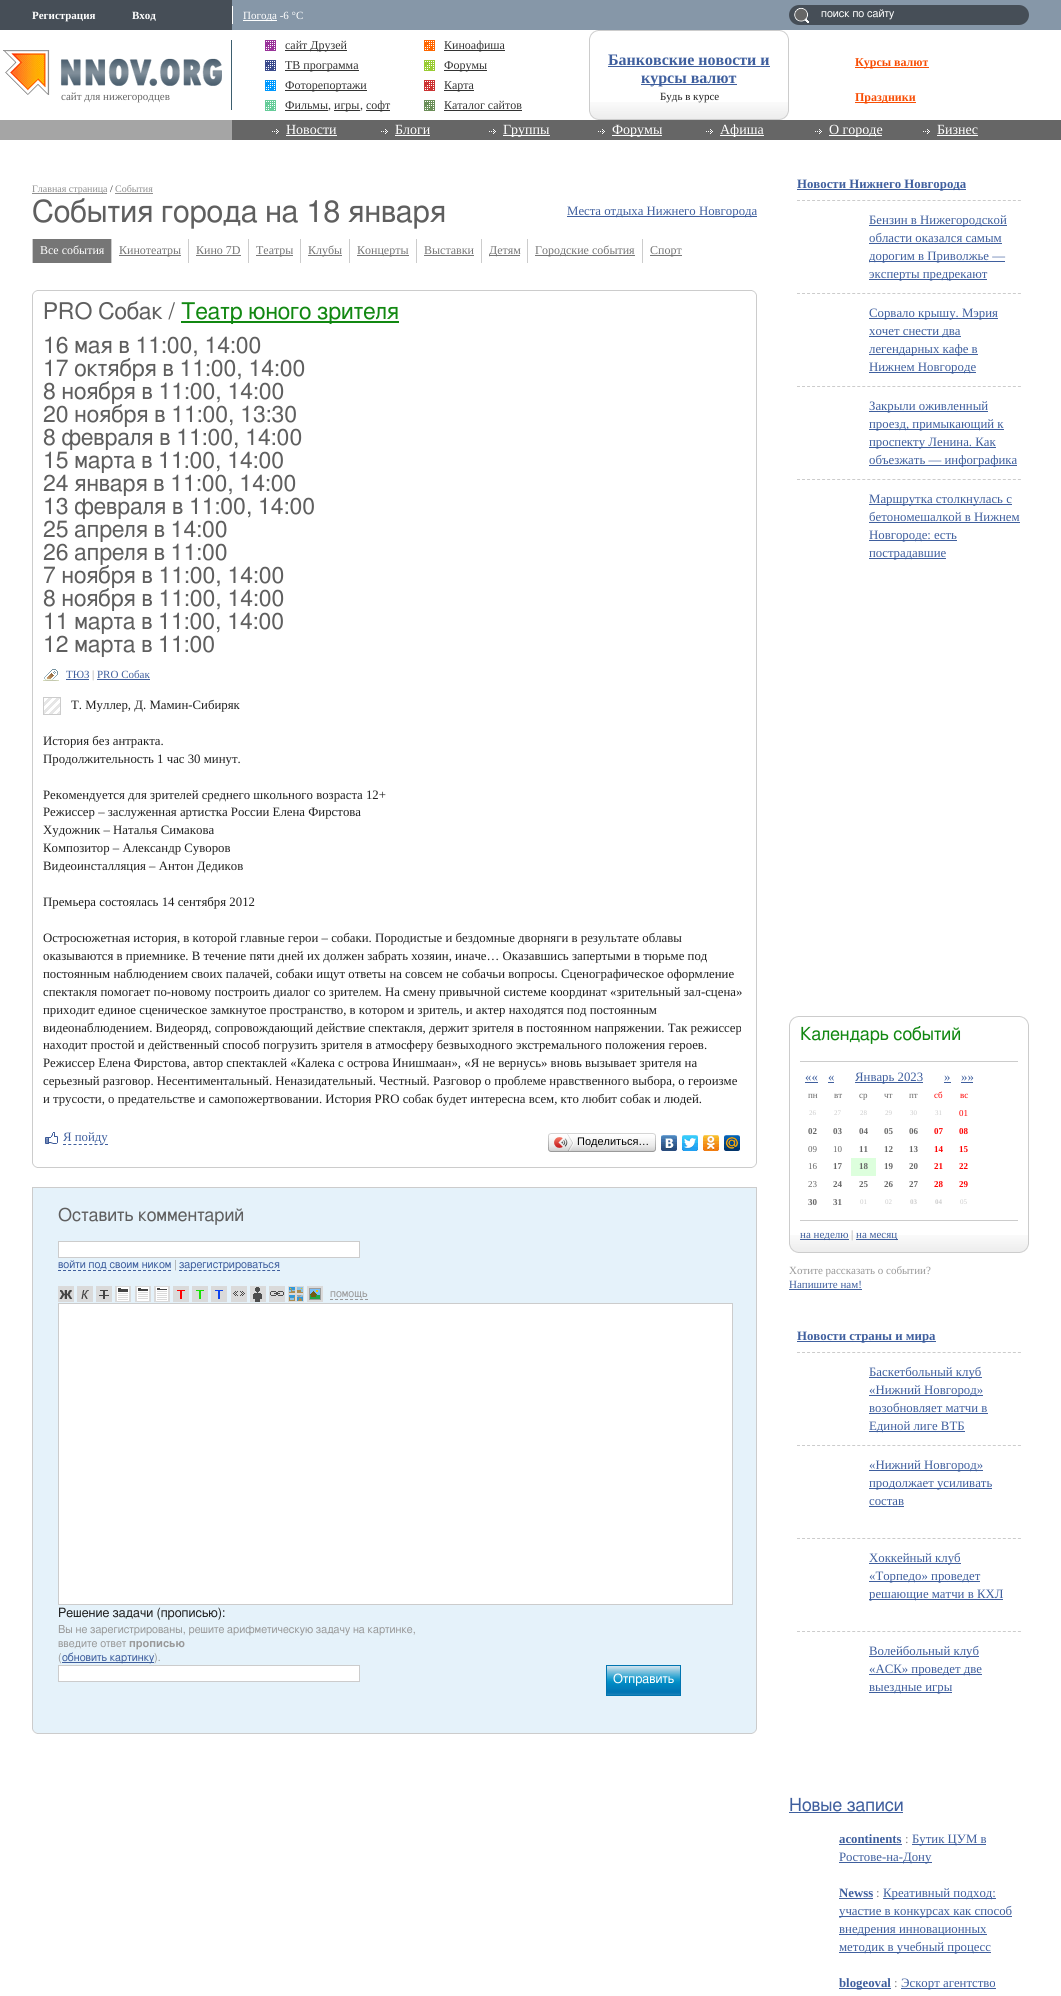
#include <cairo/cairo.h>
#include <math.h>
#include <stddef.h>

typedef struct { double x, y; const char *s; } line_t;
typedef struct { double x, y, w, h; unsigned color; } box_t;
static cairo_t *cr;

static void rgb(unsigned color)
{
	cairo_set_source_rgb(cr, (color >> 16) / 255.0, (color >> 8 & 255) / 255.0, (color & 255) / 255.0);
}

static void rrect(double x, double y, double w, double h, double r)
{
	cairo_new_sub_path(cr);
	cairo_arc(cr, x + w - r, y + h - r, r, 0, M_PI / 2);
	cairo_arc(cr, x + r, y + h - r, r, M_PI / 2, M_PI);
	cairo_arc(cr, x + r, y + r, r, M_PI, 1.5 * M_PI);
	cairo_arc(cr, x + w - r, y + r, r, 1.5 * M_PI, 2 * M_PI);
	cairo_close_path(cr);
}

static void image(const char *path, double x, double y, double w, double h)
{
	cairo_surface_t *image = cairo_image_surface_create_from_png(path);
	cairo_save(cr);
	cairo_set_source_surface(cr, image, x, y);
	cairo_rectangle(cr, x, y, w, h);
	cairo_fill(cr);
	cairo_restore(cr);
	cairo_surface_destroy(image);
}

int main(void) {
	cairo_surface_t *surface = cairo_image_surface_create(CAIRO_FORMAT_RGB24, 1061, 1996);
	cr = cairo_create(surface);
	cairo_font_options_t *options = cairo_font_options_create();
	cairo_font_options_set_hint_metrics(options, CAIRO_HINT_METRICS_OFF);
	cairo_font_options_set_hint_style(options, CAIRO_HINT_STYLE_NONE);
	cairo_set_font_options(cr, options);
	cairo_set_miter_limit(cr, 4);
	rgb(0xffffff);
	cairo_paint(cr);
	{
		static const box_t items[] = {
			{232, 0, 829, 30, 0x8697a8},
			{0, 0, 232, 30, 0x464e57},
			{232, 6, 1, 18, 0xffffff},
			{243, 20, 34, 1, 0xffffff},
		};
		for (size_t i = 0; i < sizeof items / sizeof *items; i++) {
			rgb(items[i].color);
			cairo_rectangle(cr, items[i].x, items[i].y, items[i].w, items[i].h);
			cairo_fill(cr);
		}
	}
	rgb(0x464e57);
	rrect(789, 5, 240, 20, 10);
	cairo_fill(cr);
	image("img/1.png", 794, 7, 15, 16);
	image("img/2.png", 3, 50, 219, 45);
	rgb(0x3d5e6f);
	cairo_rectangle(cr, 231, 40, 1, 70);
	cairo_fill(cr);
	rgb(0x993399);
	cairo_rectangle(cr, 265, 40, 11, 11);
	cairo_fill(cr);
	image("img/3.png", 266, 41, 9, 9);
	rgb(0x333333);
	cairo_rectangle(cr, 285, 50, 62, 1);
	cairo_fill(cr);
	rgb(0xff6600);
	cairo_rectangle(cr, 424, 40, 11, 11);
	cairo_fill(cr);
	image("img/4.png", 425, 41, 9, 9);
	rgb(0x333333);
	cairo_rectangle(cr, 444, 50, 61, 1);
	cairo_fill(cr);
	rgb(0x3b4b8c);
	cairo_rectangle(cr, 265, 60, 11, 11);
	cairo_fill(cr);
	image("img/5.png", 266, 61, 9, 9);
	rgb(0x333333);
	cairo_rectangle(cr, 285, 70, 74, 1);
	cairo_fill(cr);
	rgb(0x99cc33);
	cairo_rectangle(cr, 424, 60, 11, 11);
	cairo_fill(cr);
	image("img/6.png", 425, 61, 9, 9);
	rgb(0x333333);
	cairo_rectangle(cr, 444, 70, 43, 1);
	cairo_fill(cr);
	rgb(0x0099ff);
	cairo_rectangle(cr, 265, 80, 11, 11);
	cairo_fill(cr);
	image("img/7.png", 266, 81, 9, 9);
	rgb(0x333333);
	cairo_rectangle(cr, 285, 90, 82, 1);
	cairo_fill(cr);
	rgb(0xcc3333);
	cairo_rectangle(cr, 424, 80, 11, 11);
	cairo_fill(cr);
	image("img/8.png", 425, 81, 9, 9);
	rgb(0x333333);
	cairo_rectangle(cr, 444, 90, 30, 1);
	cairo_fill(cr);
	rgb(0x66cc99);
	cairo_rectangle(cr, 265, 100, 11, 11);
	cairo_fill(cr);
	image("img/9.png", 266, 101, 9, 9);
	{
		static const box_t items[] = {
			{285, 110, 43, 1, 0x333333},
			{334, 110, 26, 1, 0x333333},
			{366, 110, 24, 1, 0x333333},
			{424, 100, 11, 11, 0x6b8f59},
		};
		for (size_t i = 0; i < sizeof items / sizeof *items; i++) {
			rgb(items[i].color);
			cairo_rectangle(cr, items[i].x, items[i].y, items[i].w, items[i].h);
			cairo_fill(cr);
		}
	}
	image("img/10.png", 425, 101, 9, 9);
	rgb(0x333333);
	cairo_rectangle(cr, 444, 110, 78, 1);
	cairo_fill(cr);
	image("img/11.png", 590, 102, 198, 17);
	cairo_rectangle(cr, 589.5, 30.5, 199, 89);
	rgb(0xcccccc);
	cairo_set_line_width(cr, 1);
	cairo_stroke(cr);
	image("img/12.png", 589, 30, 9, 9);
	image("img/13.png", 780, 30, 9, 9);
	rgb(0x3f5f9e);
	cairo_rectangle(cr, 608, 66, 162, 1);
	cairo_fill(cr);
	cairo_rectangle(cr, 641, 84, 96, 1);
	cairo_fill(cr);
	image("img/14.png", 589, 111, 9, 9);
	image("img/15.png", 780, 111, 9, 9);
	{
		static const box_t items[] = {
			{855, 67, 74, 1, 0xf84e05},
			{855, 102, 61, 1, 0xf84e05},
			{232, 120, 829, 20, 0x666666},
			{0, 120, 232, 20, 0xa5a5a5},
		};
		for (size_t i = 0; i < sizeof items / sizeof *items; i++) {
			rgb(items[i].color);
			cairo_rectangle(cr, items[i].x, items[i].y, items[i].w, items[i].h);
			cairo_fill(cr);
		}
	}
	image("img/16.png", 272, 129, 7, 5);
	rgb(0xffffff);
	cairo_rectangle(cr, 286, 135, 51, 1);
	cairo_fill(cr);
	image("img/16.png", 381, 129, 7, 5);
	cairo_rectangle(cr, 395, 135, 35, 1);
	cairo_fill(cr);
	image("img/16.png", 489, 129, 7, 5);
	cairo_rectangle(cr, 503, 135, 47, 1);
	cairo_fill(cr);
	image("img/16.png", 598, 129, 7, 5);
	cairo_rectangle(cr, 612, 135, 50, 1);
	cairo_fill(cr);
	image("img/16.png", 706, 129, 7, 5);
	cairo_rectangle(cr, 720, 135, 44, 1);
	cairo_fill(cr);
	image("img/16.png", 815, 129, 7, 5);
	cairo_rectangle(cr, 829, 135, 53, 1);
	cairo_fill(cr);
	image("img/16.png", 923, 129, 7, 5);
	{
		static const box_t items[] = {
			{937, 135, 41, 1, 0xffffff},
			{32, 193, 75, 1, 0x8f8f8f},
			{115, 193, 38, 1, 0x8f8f8f},
			{567, 216, 190, 1, 0x3f5f9e},
			{33, 239, 78, 24, 0x767676},
			{32, 239, 1, 24, 0xcccccc},
			{111, 239, 1, 24, 0xcccccc},
			{119, 255, 62, 1, 0x767676},
			{188, 239, 1, 24, 0xcccccc},
			{196, 255, 45, 1, 0x767676},
			{248, 239, 1, 24, 0xcccccc},
			{256, 255, 37, 1, 0x767676},
			{300, 239, 1, 24, 0xcccccc},
			{308, 255, 34, 1, 0x767676},
			{349, 239, 1, 24, 0xcccccc},
			{357, 255, 52, 1, 0x767676},
			{416, 239, 1, 24, 0xcccccc},
			{424, 255, 50, 1, 0x767676},
			{481, 239, 1, 24, 0xcccccc},
			{489, 255, 31, 1, 0x767676},
			{527, 239, 1, 24, 0xcccccc},
			{535, 255, 100, 1, 0x767676},
			{642, 239, 1, 24, 0xcccccc},
			{650, 255, 32, 1, 0x767676},
		};
		for (size_t i = 0; i < sizeof items / sizeof *items; i++) {
			rgb(items[i].color);
			cairo_rectangle(cr, items[i].x, items[i].y, items[i].w, items[i].h);
			cairo_fill(cr);
		}
	}
	cairo_rectangle(cr, 32.5, 290.5, 724, 877);
	rgb(0xcccccc);
	cairo_stroke(cr);
	image("img/17.png", 32, 290, 5, 5);
	image("img/18.png", 752, 290, 5, 5);
	rgb(0x118811);
	cairo_rectangle(cr, 181, 321, 218, 2);
	cairo_fill(cr);
	image("img/19.png", 43, 669, 16, 12);
	rgb(0x3f5f9e);
	cairo_rectangle(cr, 66, 679, 23, 1);
	cairo_fill(cr);
	cairo_rectangle(cr, 97, 679, 53, 1);
	cairo_fill(cr);
	image("img/20.png", 44, 698, 16, 16);
	cairo_rectangle(cr, 43.5, 697.5, 17, 17);
	rgb(0xcccccc);
	cairo_stroke(cr);
	image("img/21.png", 45, 1132, 13, 12);
	cairo_new_path(cr);
	cairo_move_to(cr, 63, 1144.5);
	cairo_line_to(cr, 108, 1144.5);
	rgb(0x3f5f9e);
	cairo_set_dash(cr, (double[]){3, 2.25}, 2, 0);
	cairo_stroke(cr);
	image("img/22.png", 551, 1133, 102, 19);
	image("img/23.png", 548, 1133, 3, 19);
	image("img/24.png", 554, 1134, 20, 17);
	image("img/25.png", 653, 1133, 3, 19);
	image("img/26.png", 661, 1135, 16, 16);
	image("img/27.png", 682, 1135, 16, 16);
	image("img/28.png", 703, 1135, 16, 16);
	image("img/29.png", 724, 1135, 16, 16);
	image("img/30.png", 32, 1163, 5, 5);
	image("img/31.png", 752, 1163, 5, 5);
	rgb(0xe5f2fa);
	cairo_rectangle(cr, 32.5, 1187.5, 724, 546);
	cairo_fill_preserve(cr);
	rgb(0xcccccc);
	cairo_set_dash(cr, NULL, 0, 0);
	cairo_stroke(cr);
	rgb(0xffffff);
	cairo_rectangle(cr, 58.5, 1241.5, 301, 16);
	cairo_fill_preserve(cr);
	rgb(0xcccccc);
	cairo_stroke(cr);
	cairo_new_path(cr);
	cairo_move_to(cr, 58, 1270.5);
	cairo_line_to(cr, 171, 1270.5);
	rgb(0x3f5f9e);
	cairo_set_dash(cr, (double[]){3, 2}, 2, 0);
	cairo_stroke(cr);
	cairo_new_path(cr);
	cairo_move_to(cr, 179, 1270.5);
	cairo_line_to(cr, 280, 1270.5);
	cairo_set_dash(cr, (double[]){3, 1.9}, 2, 0);
	cairo_stroke(cr);
	image("img/32.png", 58, 1286, 16, 16);
	image("img/33.png", 77, 1286, 16, 16);
	image("img/34.png", 96, 1286, 16, 16);
	image("img/35.png", 115, 1286, 16, 16);
	image("img/36.png", 135, 1286, 16, 16);
	image("img/37.png", 154, 1286, 16, 16);
	image("img/38.png", 173, 1286, 16, 16);
	image("img/39.png", 192, 1286, 16, 16);
	image("img/40.png", 211, 1286, 16, 16);
	image("img/41.png", 231, 1286, 16, 16);
	image("img/42.png", 250, 1286, 16, 16);
	image("img/43.png", 269, 1286, 16, 16);
	image("img/44.png", 288, 1286, 16, 16);
	image("img/45.png", 307, 1286, 16, 16);
	cairo_new_path(cr);
	cairo_move_to(cr, 330, 1299.5);
	cairo_line_to(cr, 368, 1299.5);
	rgb(0x999999);
	cairo_set_dash(cr, (double[]){3, 2}, 2, 0);
	cairo_stroke(cr);
	rgb(0xffffff);
	cairo_rectangle(cr, 58.5, 1303.5, 674, 301);
	cairo_fill_preserve(cr);
	rgb(0xcccccc);
	cairo_set_dash(cr, NULL, 0, 0);
	cairo_stroke(cr);
	rgb(0x3f5f9e);
	cairo_rectangle(cr, 62, 1662, 92, 1);
	cairo_fill(cr);
	rgb(0xffffff);
	cairo_rectangle(cr, 58.5, 1665.5, 301, 16);
	cairo_fill_preserve(cr);
	rgb(0xcccccc);
	cairo_stroke(cr);
	image("img/46.png", 607, 1666, 73, 29);
	cairo_rectangle(cr, 606.5, 1665.5, 74, 30);
	rgb(0x0175b0);
	cairo_stroke(cr);
	image("img/47.png", 32, 1729, 5, 5);
	image("img/48.png", 752, 1729, 5, 5);
	rgb(0x3f5f9e);
	cairo_rectangle(cr, 797, 189, 169, 1);
	cairo_fill(cr);
	cairo_new_path(cr);
	cairo_move_to(cr, 797, 200.5);
	cairo_line_to(cr, 1021, 200.5);
	rgb(0xcccccc);
	cairo_set_dash(cr, (double[]){3, 2.02}, 2, 0);
	cairo_stroke(cr);
	{
		static const box_t items[] = {
			{869, 225, 138, 1, 0x3f5f9e},
			{869, 243, 133, 1, 0x3f5f9e},
			{869, 261, 136, 1, 0x3f5f9e},
			{869, 279, 118, 1, 0x3f5f9e},
		};
		for (size_t i = 0; i < sizeof items / sizeof *items; i++) {
			rgb(items[i].color);
			cairo_rectangle(cr, items[i].x, items[i].y, items[i].w, items[i].h);
			cairo_fill(cr);
		}
	}
	cairo_new_path(cr);
	cairo_move_to(cr, 797, 293.5);
	cairo_line_to(cr, 1021, 293.5);
	rgb(0xcccccc);
	cairo_stroke(cr);
	{
		static const box_t items[] = {
			{869, 318, 129, 1, 0x3f5f9e},
			{869, 336, 92, 1, 0x3f5f9e},
			{869, 354, 109, 1, 0x3f5f9e},
			{869, 372, 107, 1, 0x3f5f9e},
		};
		for (size_t i = 0; i < sizeof items / sizeof *items; i++) {
			rgb(items[i].color);
			cairo_rectangle(cr, items[i].x, items[i].y, items[i].w, items[i].h);
			cairo_fill(cr);
		}
	}
	cairo_new_path(cr);
	cairo_move_to(cr, 797, 386.5);
	cairo_line_to(cr, 1021, 386.5);
	rgb(0xcccccc);
	cairo_stroke(cr);
	{
		static const box_t items[] = {
			{869, 411, 119, 1, 0x3f5f9e},
			{869, 429, 135, 1, 0x3f5f9e},
			{869, 447, 127, 1, 0x3f5f9e},
			{869, 465, 148, 1, 0x3f5f9e},
		};
		for (size_t i = 0; i < sizeof items / sizeof *items; i++) {
			rgb(items[i].color);
			cairo_rectangle(cr, items[i].x, items[i].y, items[i].w, items[i].h);
			cairo_fill(cr);
		}
	}
	cairo_new_path(cr);
	cairo_move_to(cr, 797, 479.5);
	cairo_line_to(cr, 1021, 479.5);
	rgb(0xcccccc);
	cairo_stroke(cr);
	{
		static const box_t items[] = {
			{869, 504, 143, 1, 0x3f5f9e},
			{869, 522, 151, 1, 0x3f5f9e},
			{869, 540, 88, 1, 0x3f5f9e},
			{869, 558, 77, 1, 0x3f5f9e},
		};
		for (size_t i = 0; i < sizeof items / sizeof *items; i++) {
			rgb(items[i].color);
			cairo_rectangle(cr, items[i].x, items[i].y, items[i].w, items[i].h);
			cairo_fill(cr);
		}
	}
	image("img/49.png", 790, 1235, 238, 17);
	cairo_rectangle(cr, 789.5, 1016.5, 239, 236);
	rgb(0xcccccc);
	cairo_set_dash(cr, NULL, 0, 0);
	cairo_stroke(cr);
	image("img/12.png", 789, 1016, 9, 9);
	image("img/13.png", 1020, 1016, 9, 9);
	{
		static const box_t items[] = {
			{800, 1061, 218, 1, 0xcccccc},
			{805, 1082, 13, 1, 0x3f5f9e},
			{828, 1082, 6, 1, 0x3f5f9e},
			{855, 1082, 68, 1, 0x3f5f9e},
			{944, 1082, 7, 1, 0x3f5f9e},
			{961, 1082, 12, 1, 0x3f5f9e},
			{851, 1158, 25, 18, 0xddffdd},
			{800, 1220, 218, 1, 0xcccccc},
			{800, 1239, 49, 1, 0x3f5f9e},
			{856, 1239, 42, 1, 0x3f5f9e},
		};
		for (size_t i = 0; i < sizeof items / sizeof *items; i++) {
			rgb(items[i].color);
			cairo_rectangle(cr, items[i].x, items[i].y, items[i].w, items[i].h);
			cairo_fill(cr);
		}
	}
	image("img/14.png", 789, 1244, 9, 9);
	image("img/15.png", 1020, 1244, 9, 9);
	cairo_rectangle(cr, 789, 1289, 73, 1);
	cairo_fill(cr);
	cairo_rectangle(cr, 797, 1341, 139, 1);
	cairo_fill(cr);
	cairo_new_path(cr);
	cairo_move_to(cr, 797, 1352.5);
	cairo_line_to(cr, 1021, 1352.5);
	rgb(0xcccccc);
	cairo_set_dash(cr, (double[]){3, 2.02}, 2, 0);
	cairo_stroke(cr);
	{
		static const box_t items[] = {
			{869, 1377, 113, 1, 0x3f5f9e},
			{869, 1395, 114, 1, 0x3f5f9e},
			{869, 1413, 119, 1, 0x3f5f9e},
			{869, 1431, 96, 1, 0x3f5f9e},
		};
		for (size_t i = 0; i < sizeof items / sizeof *items; i++) {
			rgb(items[i].color);
			cairo_rectangle(cr, items[i].x, items[i].y, items[i].w, items[i].h);
			cairo_fill(cr);
		}
	}
	cairo_new_path(cr);
	cairo_move_to(cr, 797, 1445.5);
	cairo_line_to(cr, 1021, 1445.5);
	rgb(0xcccccc);
	cairo_stroke(cr);
	{
		static const box_t items[] = {
			{869, 1470, 114, 1, 0x3f5f9e},
			{869, 1488, 123, 1, 0x3f5f9e},
			{869, 1506, 35, 1, 0x3f5f9e},
		};
		for (size_t i = 0; i < sizeof items / sizeof *items; i++) {
			rgb(items[i].color);
			cairo_rectangle(cr, items[i].x, items[i].y, items[i].w, items[i].h);
			cairo_fill(cr);
		}
	}
	cairo_new_path(cr);
	cairo_move_to(cr, 797, 1538.5);
	cairo_line_to(cr, 1021, 1538.5);
	rgb(0xcccccc);
	cairo_stroke(cr);
	{
		static const box_t items[] = {
			{869, 1563, 92, 1, 0x3f5f9e},
			{869, 1581, 111, 1, 0x3f5f9e},
			{869, 1599, 134, 1, 0x3f5f9e},
		};
		for (size_t i = 0; i < sizeof items / sizeof *items; i++) {
			rgb(items[i].color);
			cairo_rectangle(cr, items[i].x, items[i].y, items[i].w, items[i].h);
			cairo_fill(cr);
		}
	}
	cairo_new_path(cr);
	cairo_move_to(cr, 797, 1631.5);
	cairo_line_to(cr, 1021, 1631.5);
	rgb(0xcccccc);
	cairo_stroke(cr);
	{
		static const box_t items[] = {
			{869, 1656, 110, 1, 0x3f5f9e},
			{869, 1674, 113, 1, 0x3f5f9e},
			{869, 1692, 83, 1, 0x3f5f9e},
			{789, 1812, 114, 1, 0x3f5f9e},
			{839, 1844, 63, 1, 0x3f5f9e},
			{912, 1844, 74, 1, 0x3f5f9e},
			{839, 1862, 93, 1, 0x3f5f9e},
			{839, 1898, 34, 1, 0x3f5f9e},
			{883, 1898, 113, 1, 0x3f5f9e},
			{839, 1916, 173, 1, 0x3f5f9e},
			{839, 1934, 148, 1, 0x3f5f9e},
			{839, 1952, 152, 1, 0x3f5f9e},
			{839, 1988, 52, 1, 0x3f5f9e},
			{901, 1988, 95, 1, 0x3f5f9e},
		};
		for (size_t i = 0; i < sizeof items / sizeof *items; i++) {
			rgb(items[i].color);
			cairo_rectangle(cr, items[i].x, items[i].y, items[i].w, items[i].h);
			cairo_fill(cr);
		}
	}
	cairo_select_font_face(cr, "Liberation Serif", CAIRO_FONT_SLANT_NORMAL, CAIRO_FONT_WEIGHT_BOLD);
	cairo_set_font_size(cr, 11);
	rgb(0xffffff);
	cairo_move_to(cr, 32, 19);
	cairo_show_text(cr, "Регистрация");
	cairo_move_to(cr, 132, 19);
	cairo_show_text(cr, "Вход");
	cairo_select_font_face(cr, "Liberation Serif", CAIRO_FONT_SLANT_NORMAL, CAIRO_FONT_WEIGHT_NORMAL);
	cairo_move_to(cr, 243, 19);
	cairo_show_text(cr, "Погода -6 °C");
	cairo_select_font_face(cr, "FreeSans", CAIRO_FONT_SLANT_NORMAL, CAIRO_FONT_WEIGHT_NORMAL);
	cairo_move_to(cr, 821, 17);
	cairo_show_text(cr, "поиск по сайту");
	cairo_select_font_face(cr, "Liberation Serif", CAIRO_FONT_SLANT_NORMAL, CAIRO_FONT_WEIGHT_NORMAL);
	rgb(0x666666);
	cairo_move_to(cr, 61, 100);
	cairo_show_text(cr, "сайт для нижегородцев");
	cairo_set_font_size(cr, 12);
	rgb(0x333333);
	{
		static const line_t items[] = {
			{285, 49, "сайт Друзей"},
			{444, 49, "Киноафиша"},
			{285, 69, "ТВ программа"},
			{444, 69, "Форумы"},
			{285, 89, "Фоторепортажи"},
			{444, 89, "Карта"},
			{285, 109, "Фильмы"},
			{328, 109, ","},
			{334, 109, "игры"},
			{360, 109, ","},
			{366, 109, "софт"},
			{444, 109, "Каталог сайтов"},
		};
		for (size_t i = 0; i < sizeof items / sizeof *items; i++) {
			cairo_move_to(cr, items[i].x, items[i].y);
			cairo_show_text(cr, items[i].s);
		}
	}
	cairo_select_font_face(cr, "Liberation Serif", CAIRO_FONT_SLANT_NORMAL, CAIRO_FONT_WEIGHT_BOLD);
	cairo_set_font_size(cr, 16);
	rgb(0x3f5f9e);
	cairo_move_to(cr, 608, 65);
	cairo_show_text(cr, "Банковские новости и");
	cairo_move_to(cr, 641, 83);
	cairo_show_text(cr, "курсы валют");
	cairo_select_font_face(cr, "Liberation Serif", CAIRO_FONT_SLANT_NORMAL, CAIRO_FONT_WEIGHT_NORMAL);
	cairo_set_font_size(cr, 11);
	rgb(0x202020);
	cairo_move_to(cr, 660, 100);
	cairo_show_text(cr, "Будь в курсе");
	cairo_select_font_face(cr, "Liberation Serif", CAIRO_FONT_SLANT_NORMAL, CAIRO_FONT_WEIGHT_BOLD);
	cairo_set_font_size(cr, 12);
	rgb(0xf84e05);
	cairo_move_to(cr, 855, 66);
	cairo_show_text(cr, "Курсы валют");
	cairo_move_to(cr, 855, 101);
	cairo_show_text(cr, "Праздники");
	cairo_select_font_face(cr, "Liberation Serif", CAIRO_FONT_SLANT_NORMAL, CAIRO_FONT_WEIGHT_NORMAL);
	cairo_set_font_size(cr, 14);
	rgb(0xffffff);
	{
		static const line_t items[] = {
			{286, 134, "Новости"},
			{395, 134, "Блоги"},
			{503, 134, "Группы"},
			{612, 134, "Форумы"},
			{720, 134, "Афиша"},
			{829, 134, "О городе"},
			{937, 134, "Бизнес"},
		};
		for (size_t i = 0; i < sizeof items / sizeof *items; i++) {
			cairo_move_to(cr, items[i].x, items[i].y);
			cairo_show_text(cr, items[i].s);
		}
	}
	cairo_set_font_size(cr, 10);
	rgb(0x8f8f8f);
	cairo_move_to(cr, 32, 192);
	cairo_show_text(cr, "Главная страница");
	rgb(0x202020);
	cairo_move_to(cr, 110, 192);
	cairo_show_text(cr, "/");
	rgb(0x8f8f8f);
	cairo_move_to(cr, 115, 192);
	cairo_show_text(cr, "События");
	cairo_select_font_face(cr, "FreeSans", CAIRO_FONT_SLANT_NORMAL, CAIRO_FONT_WEIGHT_NORMAL);
	cairo_set_font_size(cr, 30.75);
	rgb(0x5f5f5f);
	cairo_move_to(cr, 32, 222);
	cairo_show_text(cr, "События города на 18 января");
	cairo_select_font_face(cr, "Liberation Serif", CAIRO_FONT_SLANT_NORMAL, CAIRO_FONT_WEIGHT_NORMAL);
	cairo_set_font_size(cr, 12.8);
	rgb(0x3f5f9e);
	cairo_move_to(cr, 567, 215);
	cairo_show_text(cr, "Места отдыха Нижнего Новгорода");
	cairo_set_font_size(cr, 12);
	rgb(0xffffff);
	cairo_move_to(cr, 40, 254);
	cairo_show_text(cr, "Все события");
	rgb(0x767676);
	{
		static const line_t items[] = {
			{119, 254, "Кинотеатры"},
			{196, 254, "Кино 7D"},
			{256, 254, "Театры"},
			{308, 254, "Клубы"},
			{357, 254, "Концерты"},
			{424, 254, "Выставки"},
			{489, 254, "Детям"},
			{535, 254, "Городские события"},
			{650, 254, "Спорт"},
		};
		for (size_t i = 0; i < sizeof items / sizeof *items; i++) {
			cairo_move_to(cr, items[i].x, items[i].y);
			cairo_show_text(cr, items[i].s);
		}
	}
	cairo_select_font_face(cr, "FreeSans", CAIRO_FONT_SLANT_NORMAL, CAIRO_FONT_WEIGHT_NORMAL);
	cairo_set_font_size(cr, 23);
	rgb(0x5f5f5f);
	cairo_move_to(cr, 43, 319);
	cairo_show_text(cr, "PRO Собак /");
	rgb(0x118811);
	cairo_move_to(cr, 181, 319);
	cairo_show_text(cr, "Театр юного зрителя");
	rgb(0x5f5f5f);
	{
		static const line_t items[] = {
			{43, 353, "16 мая в 11:00, 14:00"},
			{43, 376, "17 октября в 11:00, 14:00"},
			{43, 399, "8 ноября в 11:00, 14:00"},
			{43, 422, "20 ноября в 11:00, 13:30"},
			{43, 445, "8 февраля в 11:00, 14:00"},
			{43, 468, "15 марта в 11:00, 14:00"},
			{43, 491, "24 января в 11:00, 14:00"},
			{43, 514, "13 февраля в 11:00, 14:00"},
			{43, 537, "25 апреля в 14:00"},
			{43, 560, "26 апреля в 11:00"},
			{43, 583, "7 ноября в 11:00, 14:00"},
			{43, 606, "8 ноября в 11:00, 14:00"},
			{43, 629, "11 марта в 11:00, 14:00"},
			{43, 652, "12 марта в 11:00"},
		};
		for (size_t i = 0; i < sizeof items / sizeof *items; i++) {
			cairo_move_to(cr, items[i].x, items[i].y);
			cairo_show_text(cr, items[i].s);
		}
	}
	cairo_select_font_face(cr, "Liberation Serif", CAIRO_FONT_SLANT_NORMAL, CAIRO_FONT_WEIGHT_NORMAL);
	cairo_set_font_size(cr, 11);
	rgb(0x3f5f9e);
	cairo_move_to(cr, 66, 678);
	cairo_show_text(cr, "ТЮЗ");
	rgb(0x999999);
	cairo_move_to(cr, 92, 678);
	cairo_show_text(cr, "|");
	rgb(0x3f5f9e);
	cairo_move_to(cr, 97, 678);
	cairo_show_text(cr, "PRO Собак");
	cairo_set_font_size(cr, 12.8);
	rgb(0x202020);
	{
		static const line_t items[] = {
			{71, 709, "Т. Муллер, Д. Мамин-Сибиряк"},
			{43, 745, "История без антракта."},
			{43, 763, "Продолжительность 1 час 30 минут."},
			{43, 799, "Рекомендуется для зрителей среднего школьного возраста 12+"},
			{43, 816, "Режиссер – заслуженная артистка России Елена Фирстова"},
			{43, 834, "Художник – Наталья Симакова"},
			{43, 852, "Композитор – Александр Суворов"},
			{43, 870, "Видеоинсталляция – Антон Дедиков"},
			{43, 906, "Премьера состоялась 14 сентября 2012"},
			{43, 942, "Остросюжетная история, в которой главные герои – собаки. Породистые и бездомные дворняги в результате облавы"},
			{43, 960, "оказываются в приемнике. В течение пяти дней их должен забрать хозяин, иначе… Оказавшись запертыми в тюрьме под"},
			{43, 978, "постоянным наблюдением своих палачей, собаки ищут ответы на совсем не собачьи вопросы. Сценографическое оформление"},
			{43, 996, "спектакля помогает по-новому построить диалог со зрителем. На смену привычной системе координат «зрительный зал-сцена»"},
			{43, 1014, "приходит единое сценическое замкнутое пространство, в котором и зритель, и актер находятся под постоянным"},
			{43, 1032, "видеонаблюдением. Видеоряд, сопровождающий действие спектакля, держит зрителя в постоянном напряжении. Так режиссер"},
			{43, 1049, "находит простой и действенный способ погрузить зрителя в атмосферу безвыходного экстремального положения героев."},
			{43, 1067, "Режиссер Елена Фирстова, автор спектаклей «Калека с острова Инишмаан», «Я не вернусь» вновь вызывает зрителя на"},
			{43, 1085, "серьезный разговор. Несентиментальный. Неназидательный. Честный. Разговор о проблеме нравственного выбора, о героизме"},
			{43, 1103, "и трусости, о предательстве и самопожертвовании. История PRO собак будет интересна всем, кто любит собак и людей."},
		};
		for (size_t i = 0; i < sizeof items / sizeof *items; i++) {
			cairo_move_to(cr, items[i].x, items[i].y);
			cairo_show_text(cr, items[i].s);
		}
	}
	rgb(0x3f5f9e);
	cairo_move_to(cr, 63, 1141);
	cairo_show_text(cr, "Я пойду");
	cairo_select_font_face(cr, "Liberation Sans", CAIRO_FONT_SLANT_NORMAL, CAIRO_FONT_WEIGHT_NORMAL);
	cairo_set_font_size(cr, 11);
	rgb(0x000000);
	cairo_move_to(cr, 577, 1145);
	cairo_show_text(cr, "Поделиться…");
	cairo_select_font_face(cr, "FreeSans", CAIRO_FONT_SLANT_NORMAL, CAIRO_FONT_WEIGHT_NORMAL);
	cairo_set_font_size(cr, 18);
	rgb(0x5f5f5f);
	cairo_move_to(cr, 58, 1221);
	cairo_show_text(cr, "Оставить комментарий");
	cairo_set_font_size(cr, 11);
	rgb(0x3f5f9e);
	cairo_move_to(cr, 58, 1268);
	cairo_show_text(cr, "войти под своим ником");
	rgb(0x999999);
	cairo_move_to(cr, 174, 1268);
	cairo_show_text(cr, "|");
	rgb(0x3f5f9e);
	cairo_move_to(cr, 179, 1268);
	cairo_show_text(cr, "зарегистрироваться");
	rgb(0x999999);
	cairo_move_to(cr, 330, 1297);
	cairo_show_text(cr, "помощь");
	cairo_set_font_size(cr, 12.8);
	rgb(0x202020);
	cairo_move_to(cr, 58, 1617);
	cairo_show_text(cr, "Решение задачи (прописью):");
	cairo_set_font_size(cr, 11);
	rgb(0x999999);
	cairo_move_to(cr, 58, 1633);
	cairo_show_text(cr, "Вы не зарегистрированы, решите арифметическую задачу на картинке,");
	cairo_move_to(cr, 58, 1647);
	cairo_show_text(cr, "введите ответ");
	cairo_select_font_face(cr, "FreeSans SemiBold", CAIRO_FONT_SLANT_NORMAL, CAIRO_FONT_WEIGHT_NORMAL);
	cairo_move_to(cr, 129, 1647);
	cairo_show_text(cr, "прописью");
	cairo_select_font_face(cr, "FreeSans", CAIRO_FONT_SLANT_NORMAL, CAIRO_FONT_WEIGHT_NORMAL);
	cairo_move_to(cr, 58, 1661);
	cairo_show_text(cr, "(");
	rgb(0x3f5f9e);
	cairo_move_to(cr, 62, 1661);
	cairo_show_text(cr, "обновить картинку");
	rgb(0x999999);
	cairo_move_to(cr, 154, 1661);
	cairo_show_text(cr, ").");
	cairo_set_font_size(cr, 12.8);
	rgb(0xffffff);
	cairo_move_to(cr, 613, 1683);
	cairo_show_text(cr, "Отправить");
	cairo_select_font_face(cr, "Liberation Serif", CAIRO_FONT_SLANT_NORMAL, CAIRO_FONT_WEIGHT_BOLD);
	rgb(0x3f5f9e);
	cairo_move_to(cr, 797, 188);
	cairo_show_text(cr, "Новости Нижнего Новгорода");
	cairo_select_font_face(cr, "Liberation Serif", CAIRO_FONT_SLANT_NORMAL, CAIRO_FONT_WEIGHT_NORMAL);
	{
		static const line_t items[] = {
			{869, 224, "Бензин в Нижегородской"},
			{869, 242, "области оказался самым"},
			{869, 260, "дорогим в Приволжье —"},
			{869, 278, "эксперты предрекают"},
			{869, 317, "Сорвало крышу. Мэрия"},
			{869, 335, "хочет снести два"},
			{869, 353, "легендарных кафе в"},
			{869, 371, "Нижнем Новгороде"},
			{869, 410, "Закрыли оживленный"},
			{869, 428, "проезд, примыкающий к"},
			{869, 446, "проспекту Ленина. Как"},
			{869, 464, "объезжать — инфографика"},
			{869, 503, "Маршрутка столкнулась с"},
			{869, 521, "бетономешалкой в Нижнем"},
			{869, 539, "Новгороде: есть"},
			{869, 557, "пострадавшие"},
		};
		for (size_t i = 0; i < sizeof items / sizeof *items; i++) {
			cairo_move_to(cr, items[i].x, items[i].y);
			cairo_show_text(cr, items[i].s);
		}
	}
	cairo_select_font_face(cr, "FreeSans", CAIRO_FONT_SLANT_NORMAL, CAIRO_FONT_WEIGHT_NORMAL);
	cairo_set_font_size(cr, 18);
	rgb(0x118811);
	cairo_move_to(cr, 800, 1040);
	cairo_show_text(cr, "Календарь событий");
	cairo_select_font_face(cr, "Liberation Serif", CAIRO_FONT_SLANT_NORMAL, CAIRO_FONT_WEIGHT_NORMAL);
	cairo_set_font_size(cr, 12.8);
	rgb(0x3f5f9e);
	{
		static const line_t items[] = {
			{805, 1081, "««"},
			{828, 1081, "«"},
			{855, 1081, "Январь 2023"},
			{944, 1081, "»"},
			{961, 1081, "»»"},
		};
		for (size_t i = 0; i < sizeof items / sizeof *items; i++) {
			cairo_move_to(cr, items[i].x, items[i].y);
			cairo_show_text(cr, items[i].s);
		}
	}
	cairo_set_font_size(cr, 9);
	rgb(0x666666);
	{
		static const line_t items[] = {
			{808, 1098, "пн"},
			{834, 1098, "вт"},
			{859, 1098, "ср"},
			{884, 1098, "чт"},
			{909, 1098, "пт"},
		};
		for (size_t i = 0; i < sizeof items / sizeof *items; i++) {
			cairo_move_to(cr, items[i].x, items[i].y);
			cairo_show_text(cr, items[i].s);
		}
	}
	rgb(0xff0000);
	cairo_move_to(cr, 934, 1098);
	cairo_show_text(cr, "сб");
	cairo_move_to(cr, 960, 1098);
	cairo_show_text(cr, "вс");
	cairo_set_font_size(cr, 7);
	rgb(0xcccccc);
	{
		static const line_t items[] = {
			{809, 1115, "26"},
			{834, 1115, "27"},
			{860, 1115, "28"},
			{885, 1115, "29"},
			{910, 1115, "30"},
			{935, 1115, "31"},
		};
		for (size_t i = 0; i < sizeof items / sizeof *items; i++) {
			cairo_move_to(cr, items[i].x, items[i].y);
			cairo_show_text(cr, items[i].s);
		}
	}
	cairo_set_font_size(cr, 9);
	rgb(0xff0000);
	cairo_move_to(cr, 959, 1116);
	cairo_show_text(cr, "01");
	cairo_select_font_face(cr, "Liberation Serif", CAIRO_FONT_SLANT_NORMAL, CAIRO_FONT_WEIGHT_BOLD);
	rgb(0x666666);
	{
		static const line_t items[] = {
			{808, 1134, "02"},
			{833, 1134, "03"},
			{859, 1134, "04"},
			{884, 1134, "05"},
			{909, 1134, "06"},
		};
		for (size_t i = 0; i < sizeof items / sizeof *items; i++) {
			cairo_move_to(cr, items[i].x, items[i].y);
			cairo_show_text(cr, items[i].s);
		}
	}
	rgb(0xff0000);
	cairo_move_to(cr, 934, 1134);
	cairo_show_text(cr, "07");
	cairo_move_to(cr, 959, 1134);
	cairo_show_text(cr, "08");
	cairo_select_font_face(cr, "Liberation Serif", CAIRO_FONT_SLANT_NORMAL, CAIRO_FONT_WEIGHT_NORMAL);
	rgb(0x666666);
	cairo_move_to(cr, 808, 1152);
	cairo_show_text(cr, "09");
	cairo_move_to(cr, 833, 1152);
	cairo_show_text(cr, "10");
	cairo_select_font_face(cr, "Liberation Serif", CAIRO_FONT_SLANT_NORMAL, CAIRO_FONT_WEIGHT_BOLD);
	{
		static const line_t items[] = {
			{859, 1152, "11"},
			{884, 1152, "12"},
			{909, 1152, "13"},
		};
		for (size_t i = 0; i < sizeof items / sizeof *items; i++) {
			cairo_move_to(cr, items[i].x, items[i].y);
			cairo_show_text(cr, items[i].s);
		}
	}
	rgb(0xff0000);
	cairo_move_to(cr, 934, 1152);
	cairo_show_text(cr, "14");
	cairo_move_to(cr, 959, 1152);
	cairo_show_text(cr, "15");
	cairo_select_font_face(cr, "Liberation Serif", CAIRO_FONT_SLANT_NORMAL, CAIRO_FONT_WEIGHT_NORMAL);
	rgb(0x666666);
	cairo_move_to(cr, 808, 1169);
	cairo_show_text(cr, "16");
	cairo_select_font_face(cr, "Liberation Serif", CAIRO_FONT_SLANT_NORMAL, CAIRO_FONT_WEIGHT_BOLD);
	{
		static const line_t items[] = {
			{833, 1169, "17"},
			{859, 1169, "18"},
			{884, 1169, "19"},
			{909, 1169, "20"},
		};
		for (size_t i = 0; i < sizeof items / sizeof *items; i++) {
			cairo_move_to(cr, items[i].x, items[i].y);
			cairo_show_text(cr, items[i].s);
		}
	}
	rgb(0xff0000);
	cairo_move_to(cr, 934, 1169);
	cairo_show_text(cr, "21");
	cairo_move_to(cr, 959, 1169);
	cairo_show_text(cr, "22");
	cairo_select_font_face(cr, "Liberation Serif", CAIRO_FONT_SLANT_NORMAL, CAIRO_FONT_WEIGHT_NORMAL);
	rgb(0x666666);
	cairo_move_to(cr, 808, 1187);
	cairo_show_text(cr, "23");
	cairo_select_font_face(cr, "Liberation Serif", CAIRO_FONT_SLANT_NORMAL, CAIRO_FONT_WEIGHT_BOLD);
	{
		static const line_t items[] = {
			{833, 1187, "24"},
			{859, 1187, "25"},
			{884, 1187, "26"},
			{909, 1187, "27"},
		};
		for (size_t i = 0; i < sizeof items / sizeof *items; i++) {
			cairo_move_to(cr, items[i].x, items[i].y);
			cairo_show_text(cr, items[i].s);
		}
	}
	rgb(0xff0000);
	cairo_move_to(cr, 934, 1187);
	cairo_show_text(cr, "28");
	cairo_move_to(cr, 959, 1187);
	cairo_show_text(cr, "29");
	rgb(0x666666);
	cairo_move_to(cr, 808, 1205);
	cairo_show_text(cr, "30");
	cairo_move_to(cr, 833, 1205);
	cairo_show_text(cr, "31");
	cairo_select_font_face(cr, "Liberation Serif", CAIRO_FONT_SLANT_NORMAL, CAIRO_FONT_WEIGHT_NORMAL);
	cairo_set_font_size(cr, 7);
	rgb(0xcccccc);
	cairo_move_to(cr, 860, 1204);
	cairo_show_text(cr, "01");
	cairo_move_to(cr, 885, 1204);
	cairo_show_text(cr, "02");
	cairo_select_font_face(cr, "Liberation Serif", CAIRO_FONT_SLANT_NORMAL, CAIRO_FONT_WEIGHT_BOLD);
	cairo_move_to(cr, 910, 1204);
	cairo_show_text(cr, "03");
	cairo_move_to(cr, 935, 1204);
	cairo_show_text(cr, "04");
	cairo_select_font_face(cr, "Liberation Serif", CAIRO_FONT_SLANT_NORMAL, CAIRO_FONT_WEIGHT_NORMAL);
	cairo_move_to(cr, 960, 1204);
	cairo_show_text(cr, "05");
	cairo_set_font_size(cr, 11);
	rgb(0x3f5f9e);
	cairo_move_to(cr, 800, 1238);
	cairo_show_text(cr, "на неделю");
	rgb(0x999999);
	cairo_move_to(cr, 851, 1238);
	cairo_show_text(cr, "|");
	rgb(0x3f5f9e);
	cairo_move_to(cr, 856, 1238);
	cairo_show_text(cr, "на месяц");
	rgb(0x999999);
	cairo_move_to(cr, 789, 1274);
	cairo_show_text(cr, "Хотите рассказать о событии?");
	rgb(0x3f5f9e);
	cairo_move_to(cr, 789, 1288);
	cairo_show_text(cr, "Напишите нам!");
	cairo_select_font_face(cr, "Liberation Serif", CAIRO_FONT_SLANT_NORMAL, CAIRO_FONT_WEIGHT_BOLD);
	cairo_set_font_size(cr, 12.8);
	cairo_move_to(cr, 797, 1340);
	cairo_show_text(cr, "Новости страны и мира");
	cairo_select_font_face(cr, "Liberation Serif", CAIRO_FONT_SLANT_NORMAL, CAIRO_FONT_WEIGHT_NORMAL);
	{
		static const line_t items[] = {
			{869, 1376, "Баскетбольный клуб"},
			{869, 1394, "«Нижний Новгород»"},
			{869, 1412, "возобновляет матчи в"},
			{869, 1430, "Единой лиге ВТБ"},
			{869, 1469, "«Нижний Новгород»"},
			{869, 1487, "продолжает усиливать"},
			{869, 1505, "состав"},
			{869, 1562, "Хоккейный клуб"},
			{869, 1580, "«Торпедо» проведет"},
			{869, 1598, "решающие матчи в КХЛ"},
			{869, 1655, "Волейбольный клуб"},
			{869, 1673, "«АСК» проведет две"},
			{869, 1691, "выездные игры"},
		};
		for (size_t i = 0; i < sizeof items / sizeof *items; i++) {
			cairo_move_to(cr, items[i].x, items[i].y);
			cairo_show_text(cr, items[i].s);
		}
	}
	cairo_select_font_face(cr, "FreeSans", CAIRO_FONT_SLANT_NORMAL, CAIRO_FONT_WEIGHT_NORMAL);
	cairo_set_font_size(cr, 18);
	cairo_move_to(cr, 789, 1811);
	cairo_show_text(cr, "Новые записи");
	cairo_select_font_face(cr, "Liberation Serif", CAIRO_FONT_SLANT_NORMAL, CAIRO_FONT_WEIGHT_BOLD);
	cairo_set_font_size(cr, 12.8);
	cairo_move_to(cr, 839, 1843);
	cairo_show_text(cr, "acontinents");
	cairo_select_font_face(cr, "Liberation Serif", CAIRO_FONT_SLANT_NORMAL, CAIRO_FONT_WEIGHT_NORMAL);
	rgb(0x808080);
	cairo_move_to(cr, 905, 1843);
	cairo_show_text(cr, ":");
	rgb(0x3f5f9e);
	cairo_move_to(cr, 912, 1843);
	cairo_show_text(cr, "Бутик ЦУМ в");
	cairo_move_to(cr, 839, 1861);
	cairo_show_text(cr, "Ростове-на-Дону");
	cairo_select_font_face(cr, "Liberation Serif", CAIRO_FONT_SLANT_NORMAL, CAIRO_FONT_WEIGHT_BOLD);
	cairo_move_to(cr, 839, 1897);
	cairo_show_text(cr, "Newss");
	cairo_select_font_face(cr, "Liberation Serif", CAIRO_FONT_SLANT_NORMAL, CAIRO_FONT_WEIGHT_NORMAL);
	rgb(0x808080);
	cairo_move_to(cr, 876, 1897);
	cairo_show_text(cr, ":");
	rgb(0x3f5f9e);
	{
		static const line_t items[] = {
			{883, 1897, "Креативный подход:"},
			{839, 1915, "участие в конкурсах как способ"},
			{839, 1933, "внедрения инновационных"},
			{839, 1951, "методик в учебный процесс"},
		};
		for (size_t i = 0; i < sizeof items / sizeof *items; i++) {
			cairo_move_to(cr, items[i].x, items[i].y);
			cairo_show_text(cr, items[i].s);
		}
	}
	cairo_select_font_face(cr, "Liberation Serif", CAIRO_FONT_SLANT_NORMAL, CAIRO_FONT_WEIGHT_BOLD);
	cairo_move_to(cr, 839, 1987);
	cairo_show_text(cr, "blogeoval");
	cairo_select_font_face(cr, "Liberation Serif", CAIRO_FONT_SLANT_NORMAL, CAIRO_FONT_WEIGHT_NORMAL);
	rgb(0x808080);
	cairo_move_to(cr, 894, 1987);
	cairo_show_text(cr, ":");
	rgb(0x3f5f9e);
	cairo_move_to(cr, 901, 1987);
	cairo_show_text(cr, "Эскорт агентство");
	cairo_surface_write_to_png(surface, "page.png");
	cairo_font_options_destroy(options);
	cairo_destroy(cr);
	cairo_surface_destroy(surface);
	return 0;
}
